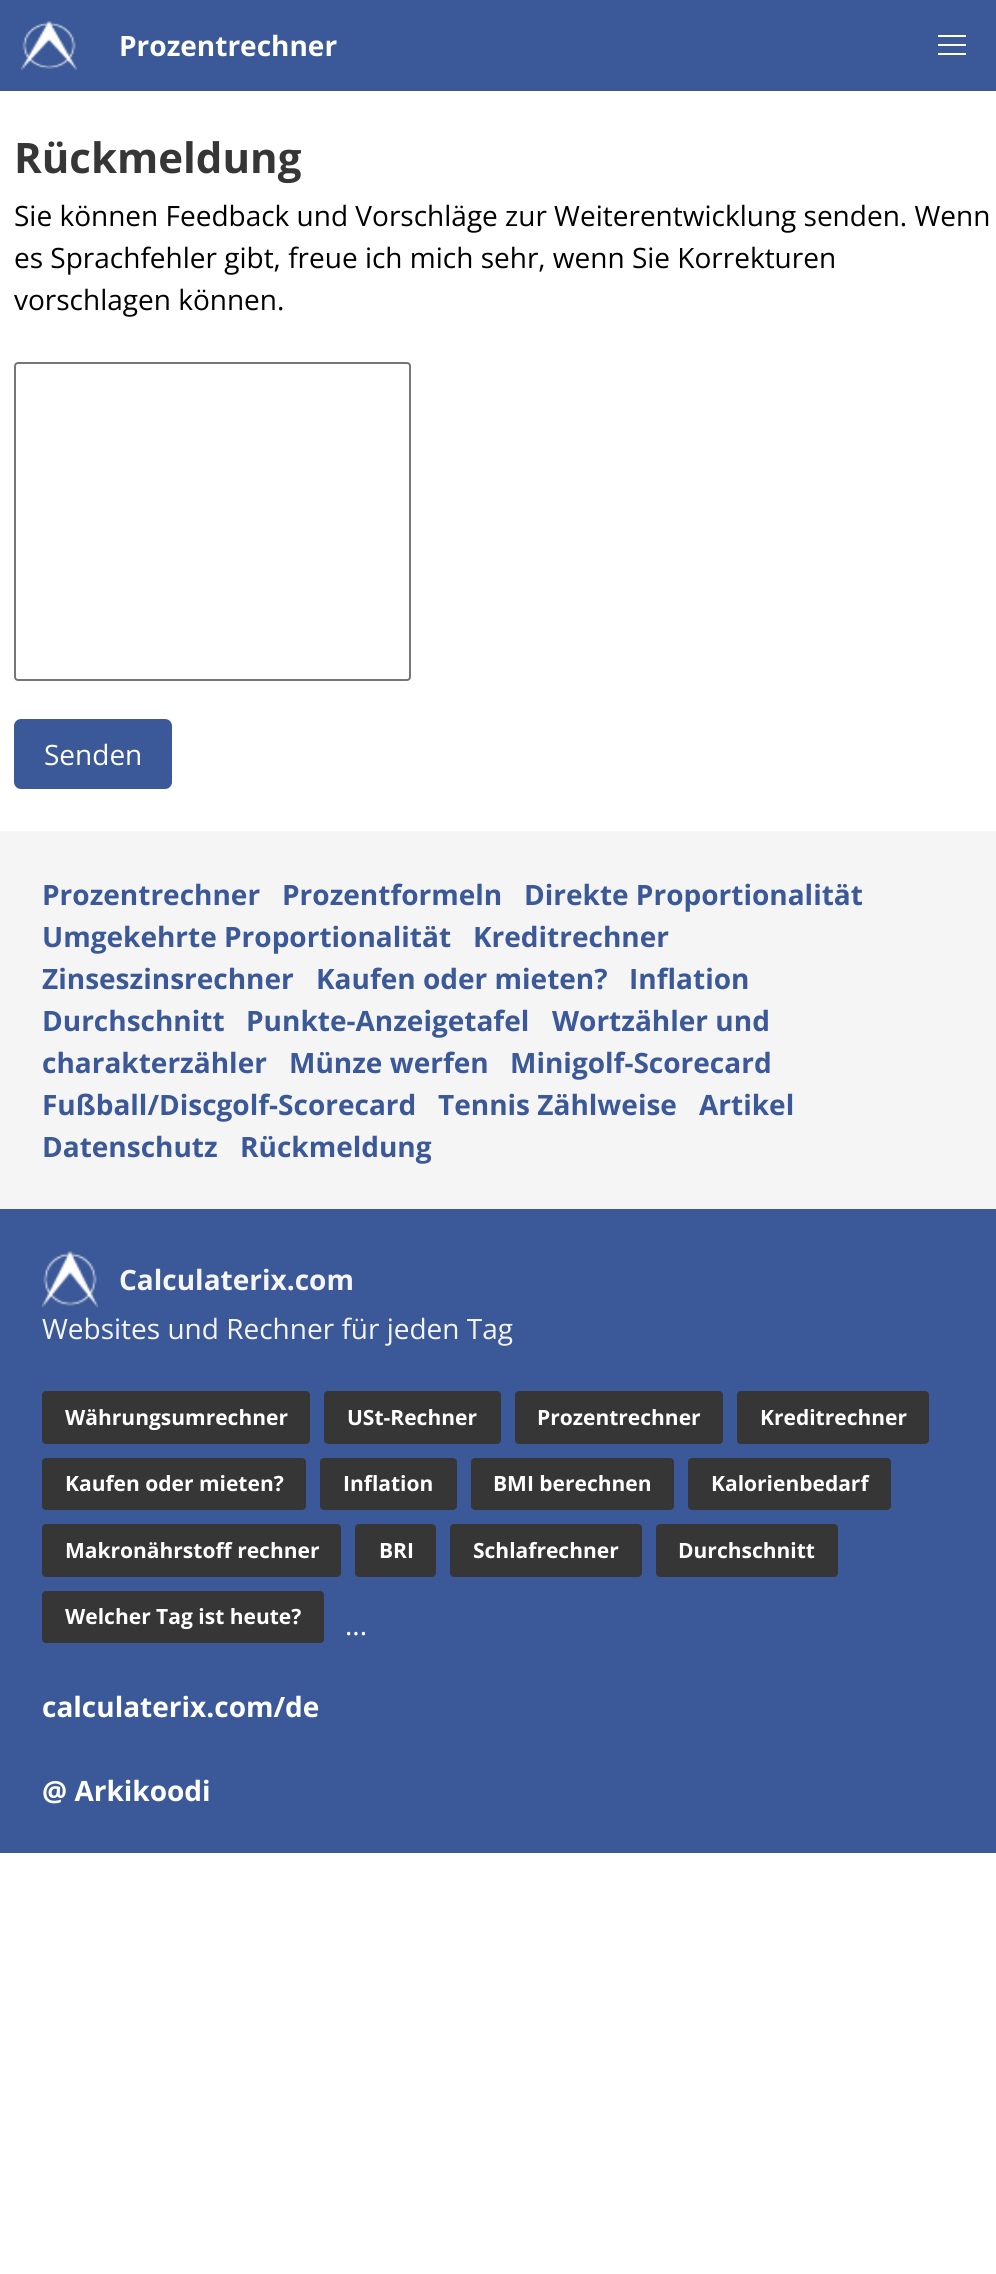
#include <cairo/cairo.h>
#include <math.h>
#include <stddef.h>

typedef struct { double x, y; const char *s; } line_t;
typedef struct { double x, y, w, h; unsigned color; } box_t;
static cairo_t *cr;

static void rgb(unsigned color)
{
	cairo_set_source_rgb(cr, (color >> 16) / 255.0, (color >> 8 & 255) / 255.0, (color & 255) / 255.0);
}

static void rrect(double x, double y, double w, double h, double r)
{
	cairo_new_sub_path(cr);
	cairo_arc(cr, x + w - r, y + h - r, r, 0, M_PI / 2);
	cairo_arc(cr, x + r, y + h - r, r, M_PI / 2, M_PI);
	cairo_arc(cr, x + r, y + r, r, M_PI, 1.5 * M_PI);
	cairo_arc(cr, x + w - r, y + r, r, 1.5 * M_PI, 2 * M_PI);
	cairo_close_path(cr);
}

static void image(const char *path, double x, double y, double w, double h)
{
	cairo_surface_t *image = cairo_image_surface_create_from_png(path);
	cairo_save(cr);
	cairo_set_source_surface(cr, image, x, y);
	cairo_rectangle(cr, x, y, w, h);
	cairo_fill(cr);
	cairo_restore(cr);
	cairo_surface_destroy(image);
}

int main(void) {
	cairo_surface_t *surface = cairo_image_surface_create(CAIRO_FORMAT_RGB24, 996, 2274);
	cr = cairo_create(surface);
	cairo_font_options_t *options = cairo_font_options_create();
	cairo_font_options_set_hint_metrics(options, CAIRO_HINT_METRICS_OFF);
	cairo_font_options_set_hint_style(options, CAIRO_HINT_STYLE_NONE);
	cairo_set_font_options(cr, options);
	cairo_set_miter_limit(cr, 4);
	rgb(0xffffff);
	cairo_paint(cr);
	rgb(0x3b5998);
	cairo_rectangle(cr, 0, 0, 996, 91);
	cairo_fill(cr);
	image("img/1.png", 21, 21, 56, 49);
	{
		static const box_t items[] = {
			{938, 35, 28, 2, 0xffffff},
			{938, 44, 28, 2, 0xffffff},
			{938, 53, 28, 2, 0xffffff},
		};
		for (size_t i = 0; i < sizeof items / sizeof *items; i++) {
			rgb(items[i].color);
			cairo_rectangle(cr, items[i].x, items[i].y, items[i].w, items[i].h);
			cairo_fill(cr);
		}
	}
	rrect(15, 363, 395, 317, 3);
	rgb(0x767676);
	cairo_stroke(cr);
	rgb(0x3b5998);
	rrect(14, 719, 158, 70, 7);
	cairo_fill(cr);
	rgb(0xf5f5f5);
	cairo_rectangle(cr, 0, 831, 996, 378);
	cairo_fill(cr);
	rgb(0x3b5998);
	cairo_rectangle(cr, 0, 1209, 996, 644);
	cairo_fill(cr);
	image("img/2.png", 42, 1251, 56, 57);
	rgb(0x363636);
	rrect(42, 1391, 268, 53, 4);
	cairo_fill(cr);
	rrect(324, 1391, 177, 53, 4);
	cairo_fill(cr);
	rrect(515, 1391, 208, 53, 4);
	cairo_fill(cr);
	rrect(737, 1391, 192, 53, 4);
	cairo_fill(cr);
	rrect(42, 1458, 264, 52, 4);
	cairo_fill(cr);
	rrect(320, 1458, 137, 52, 4);
	cairo_fill(cr);
	rrect(471, 1458, 203, 52, 4);
	cairo_fill(cr);
	rrect(688, 1458, 203, 52, 4);
	cairo_fill(cr);
	rrect(42, 1524, 299, 53, 4);
	cairo_fill(cr);
	rrect(355, 1524, 81, 53, 4);
	cairo_fill(cr);
	rrect(450, 1524, 192, 53, 4);
	cairo_fill(cr);
	rrect(656, 1524, 182, 53, 4);
	cairo_fill(cr);
	rrect(42, 1591, 282, 52, 4);
	cairo_fill(cr);
	cairo_select_font_face(cr, "Open Sans", CAIRO_FONT_SLANT_NORMAL, CAIRO_FONT_WEIGHT_BOLD);
	cairo_set_font_size(cr, 28);
	rgb(0xffffff);
	cairo_move_to(cr, 119, 56);
	cairo_show_text(cr, "Prozentrechner");
	cairo_set_font_size(cr, 42);
	rgb(0x363636);
	cairo_move_to(cr, 14, 173);
	cairo_show_text(cr, "Rückmeldung");
	cairo_select_font_face(cr, "Open Sans", CAIRO_FONT_SLANT_NORMAL, CAIRO_FONT_WEIGHT_NORMAL);
	cairo_set_font_size(cr, 28);
	rgb(0x000000);
	{
		static const line_t items[] = {
			{14, 226, "Sie können Feedback und Vorschläge zur Weiterentwicklung senden. Wenn"},
			{14, 268, "es Sprachfehler gibt, freue ich mich sehr, wenn Sie Korrekturen"},
			{14, 310, "vorschlagen können."},
		};
		for (size_t i = 0; i < sizeof items / sizeof *items; i++) {
			cairo_move_to(cr, items[i].x, items[i].y);
			cairo_show_text(cr, items[i].s);
		}
	}
	rgb(0xffffff);
	cairo_move_to(cr, 44, 765);
	cairo_show_text(cr, "Senden");
	cairo_select_font_face(cr, "Open Sans", CAIRO_FONT_SLANT_NORMAL, CAIRO_FONT_WEIGHT_BOLD);
	rgb(0x3b5998);
	{
		static const line_t items[] = {
			{42, 905, "Prozentrechner"},
			{282, 905, "Prozentformeln"},
			{524, 905, "Direkte Proportionalität"},
			{42, 947, "Umgekehrte Proportionalität"},
			{473, 947, "Kreditrechner"},
			{42, 989, "Zinseszinsrechner"},
			{316, 989, "Kaufen oder mieten?"},
			{629, 989, "Inflation"},
			{42, 1031, "Durchschnitt"},
			{246, 1031, "Punkte-Anzeigetafel"},
			{552, 1031, "Wortzähler und"},
			{42, 1073, "charakterzähler"},
			{289, 1073, "Münze werfen"},
			{510, 1073, "Minigolf-Scorecard"},
			{42, 1115, "Fußball/Discgolf-Scorecard"},
			{438, 1115, "Tennis Zählweise"},
			{699, 1115, "Artikel"},
			{42, 1157, "Datenschutz"},
			{240, 1157, "Rückmeldung"},
		};
		for (size_t i = 0; i < sizeof items / sizeof *items; i++) {
			cairo_move_to(cr, items[i].x, items[i].y);
			cairo_show_text(cr, items[i].s);
		}
	}
	rgb(0xf5f5f5);
	cairo_move_to(cr, 119, 1290);
	cairo_show_text(cr, "Calculaterix.com");
	cairo_select_font_face(cr, "Open Sans", CAIRO_FONT_SLANT_NORMAL, CAIRO_FONT_WEIGHT_NORMAL);
	cairo_move_to(cr, 42, 1339);
	cairo_show_text(cr, "Websites und Rechner für jeden Tag");
	cairo_select_font_face(cr, "Open Sans", CAIRO_FONT_SLANT_NORMAL, CAIRO_FONT_WEIGHT_BOLD);
	cairo_set_font_size(cr, 21);
	rgb(0xffffff);
	{
		static const line_t items[] = {
			{65, 1425, "Währungsumrechner"},
			{347, 1425, "USt-Rechner"},
			{537, 1425, "Prozentrechner"},
			{760, 1425, "Kreditrechner"},
			{65, 1491, "Kaufen oder mieten?"},
			{343, 1491, "Inflation"},
			{493, 1491, "BMI berechnen"},
			{711, 1491, "Kalorienbedarf"},
			{65, 1558, "Makronährstoff rechner"},
			{379, 1558, "BRI"},
			{473, 1558, "Schlafrechner"},
			{678, 1558, "Durchschnitt"},
			{65, 1624, "Welcher Tag ist heute?"},
		};
		for (size_t i = 0; i < sizeof items / sizeof *items; i++) {
			cairo_move_to(cr, items[i].x, items[i].y);
			cairo_show_text(cr, items[i].s);
		}
	}
	cairo_select_font_face(cr, "Open Sans", CAIRO_FONT_SLANT_NORMAL, CAIRO_FONT_WEIGHT_NORMAL);
	cairo_set_font_size(cr, 28);
	cairo_move_to(cr, 345, 1635);
	cairo_show_text(cr, "...");
	cairo_select_font_face(cr, "Open Sans", CAIRO_FONT_SLANT_NORMAL, CAIRO_FONT_WEIGHT_BOLD);
	cairo_move_to(cr, 42, 1717);
	cairo_show_text(cr, "calculaterix.com/de");
	cairo_move_to(cr, 42, 1801);
	cairo_show_text(cr, "@ Arkikoodi");
	cairo_surface_write_to_png(surface, "page.png");
	cairo_font_options_destroy(options);
	cairo_destroy(cr);
	cairo_surface_destroy(surface);
	return 0;
}
